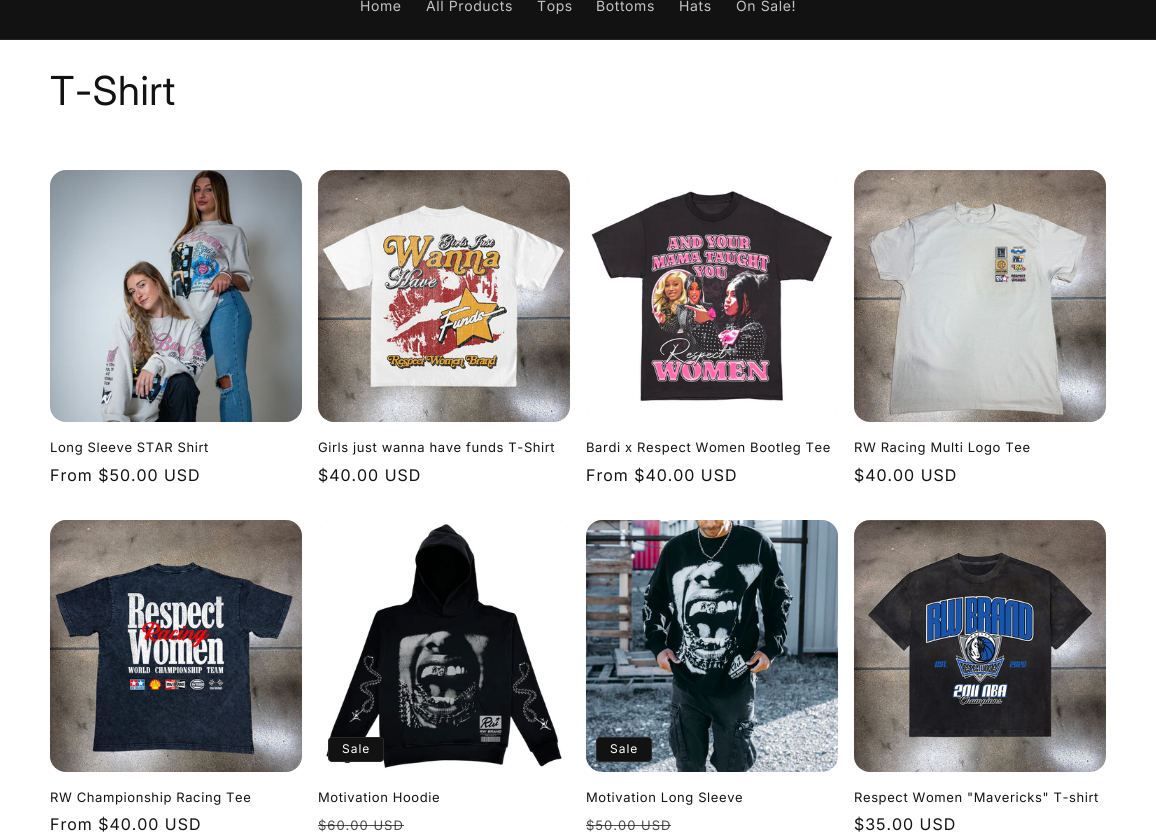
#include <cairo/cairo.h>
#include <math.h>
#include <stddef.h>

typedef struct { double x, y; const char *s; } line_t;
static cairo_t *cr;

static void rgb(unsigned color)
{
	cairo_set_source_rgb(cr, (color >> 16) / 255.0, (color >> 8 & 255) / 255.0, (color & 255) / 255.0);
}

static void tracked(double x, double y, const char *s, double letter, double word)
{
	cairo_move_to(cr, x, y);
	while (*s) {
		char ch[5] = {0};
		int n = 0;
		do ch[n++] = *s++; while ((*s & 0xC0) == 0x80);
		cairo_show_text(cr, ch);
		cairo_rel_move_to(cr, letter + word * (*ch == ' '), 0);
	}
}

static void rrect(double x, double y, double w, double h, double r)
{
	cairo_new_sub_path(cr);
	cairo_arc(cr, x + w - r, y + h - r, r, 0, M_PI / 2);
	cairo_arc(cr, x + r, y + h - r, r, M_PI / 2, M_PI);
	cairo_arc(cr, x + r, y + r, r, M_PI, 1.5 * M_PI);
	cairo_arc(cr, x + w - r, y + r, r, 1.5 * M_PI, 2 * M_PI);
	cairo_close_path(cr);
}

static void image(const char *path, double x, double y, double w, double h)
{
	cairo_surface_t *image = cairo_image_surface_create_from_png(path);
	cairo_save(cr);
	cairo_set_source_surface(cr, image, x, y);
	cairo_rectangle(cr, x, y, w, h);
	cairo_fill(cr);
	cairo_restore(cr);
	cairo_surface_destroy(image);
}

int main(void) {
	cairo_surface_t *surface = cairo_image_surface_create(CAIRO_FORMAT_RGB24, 1156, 840);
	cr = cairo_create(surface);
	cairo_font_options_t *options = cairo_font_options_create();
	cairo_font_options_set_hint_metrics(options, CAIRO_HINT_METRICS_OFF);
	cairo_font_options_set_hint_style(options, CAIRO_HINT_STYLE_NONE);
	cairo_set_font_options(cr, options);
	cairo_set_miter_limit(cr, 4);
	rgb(0xffffff);
	cairo_paint(cr);
	rgb(0x121212);
	cairo_rectangle(cr, 0, 0, 1156, 39);
	cairo_fill(cr);
	rgb(0x252525);
	cairo_rectangle(cr, 0, 39, 1156, 1);
	cairo_fill(cr);
	rgb(0xf3f3f3);
	rrect(50, 170, 252, 252, 16);
	cairo_fill(cr);
	image("img/1.png", 50, 170, 252, 252);
	rrect(318, 170, 252, 252, 16);
	cairo_fill(cr);
	image("img/2.png", 318, 170, 252, 252);
	rrect(586, 170, 252, 252, 16);
	cairo_fill(cr);
	image("img/3.png", 586, 170, 252, 252);
	rrect(854, 170, 252, 252, 16);
	cairo_fill(cr);
	image("img/4.png", 854, 170, 252, 252);
	rrect(50, 520, 252, 252, 16);
	cairo_fill(cr);
	image("img/5.png", 50, 520, 252, 252);
	rrect(318, 520, 252, 252, 16);
	cairo_fill(cr);
	image("img/6.png", 318, 520, 252, 252);
	rgb(0x121212);
	rrect(328, 737, 56, 25, 4);
	cairo_fill(cr);
	rrect(328.5, 737.5, 55, 24, 3.5);
	cairo_set_source_rgba(cr, 1, 1, 1, 0.1);
	cairo_set_line_width(cr, 1);
	cairo_stroke(cr);
	rgb(0xf3f3f3);
	rrect(586, 520, 252, 252, 16);
	cairo_fill(cr);
	image("img/7.png", 586, 520, 252, 252);
	rgb(0x121212);
	rrect(596, 737, 56, 25, 4);
	cairo_fill(cr);
	rrect(596.5, 737.5, 55, 24, 3.5);
	cairo_set_source_rgba(cr, 1, 1, 1, 0.1);
	cairo_stroke(cr);
	rgb(0xf3f3f3);
	rrect(854, 520, 252, 252, 16);
	cairo_fill(cr);
	image("img/8.png", 854, 520, 252, 252);
	cairo_select_font_face(cr, "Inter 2", CAIRO_FONT_SLANT_NORMAL, CAIRO_FONT_WEIGHT_NORMAL);
	cairo_set_font_size(cr, 14);
	rgb(0xc4c4c4);
	{
		static const line_t items[] = {
			{360, 11, "Home"},
			{426, 11, "All Products"},
			{537, 11, "Tops"},
			{596, 11, "Bottoms"},
			{679, 11, "Hats"},
			{736, 11, "On Sale!"},
		};
		for (size_t i = 0; i < sizeof items / sizeof *items; i++) {
			tracked(items[i].x, items[i].y, items[i].s, 0.6, 0);
		}
	}
	cairo_select_font_face(cr, "Inter", CAIRO_FONT_SLANT_NORMAL, CAIRO_FONT_WEIGHT_NORMAL);
	cairo_set_font_size(cr, 40);
	rgb(0x121212);
	tracked(50, 105, "T-Shirt", 0.6, 0);
	cairo_select_font_face(cr, "Inter 2", CAIRO_FONT_SLANT_NORMAL, CAIRO_FONT_WEIGHT_NORMAL);
	cairo_set_font_size(cr, 13);
	tracked(50, 452, "Long Sleeve STAR Shirt", 0.6, 0);
	cairo_select_font_face(cr, "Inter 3", CAIRO_FONT_SLANT_NORMAL, CAIRO_FONT_WEIGHT_NORMAL);
	cairo_set_font_size(cr, 16);
	tracked(50, 481, "From $50.00 USD", 1, 0);
	cairo_select_font_face(cr, "Inter 2", CAIRO_FONT_SLANT_NORMAL, CAIRO_FONT_WEIGHT_NORMAL);
	cairo_set_font_size(cr, 13);
	tracked(318, 452, "Girls just wanna have funds T-Shirt", 0.6, 0);
	cairo_select_font_face(cr, "Inter 3", CAIRO_FONT_SLANT_NORMAL, CAIRO_FONT_WEIGHT_NORMAL);
	cairo_set_font_size(cr, 16);
	tracked(318, 481, "$40.00 USD", 1, 0);
	cairo_select_font_face(cr, "Inter 2", CAIRO_FONT_SLANT_NORMAL, CAIRO_FONT_WEIGHT_NORMAL);
	cairo_set_font_size(cr, 13);
	tracked(586, 452, "Bardi x Respect Women Bootleg Tee", 0.6, 0);
	cairo_select_font_face(cr, "Inter 3", CAIRO_FONT_SLANT_NORMAL, CAIRO_FONT_WEIGHT_NORMAL);
	cairo_set_font_size(cr, 16);
	tracked(586, 481, "From $40.00 USD", 1, 0);
	cairo_select_font_face(cr, "Inter 2", CAIRO_FONT_SLANT_NORMAL, CAIRO_FONT_WEIGHT_NORMAL);
	cairo_set_font_size(cr, 13);
	tracked(854, 452, "RW Racing Multi Logo Tee", 0.6, 0);
	cairo_select_font_face(cr, "Inter 3", CAIRO_FONT_SLANT_NORMAL, CAIRO_FONT_WEIGHT_NORMAL);
	cairo_set_font_size(cr, 16);
	tracked(854, 481, "$40.00 USD", 1, 0);
	cairo_select_font_face(cr, "Inter 2", CAIRO_FONT_SLANT_NORMAL, CAIRO_FONT_WEIGHT_NORMAL);
	cairo_set_font_size(cr, 13);
	tracked(50, 802, "RW Championship Racing Tee", 0.6, 0);
	cairo_select_font_face(cr, "Inter 3", CAIRO_FONT_SLANT_NORMAL, CAIRO_FONT_WEIGHT_NORMAL);
	cairo_set_font_size(cr, 16);
	tracked(50, 830, "From $40.00 USD", 1, 0);
	cairo_select_font_face(cr, "Inter 2", CAIRO_FONT_SLANT_NORMAL, CAIRO_FONT_WEIGHT_NORMAL);
	cairo_set_font_size(cr, 12);
	rgb(0xffffff);
	tracked(342, 753, "Sale", 1, 0);
	cairo_set_font_size(cr, 13);
	rgb(0x121212);
	tracked(318, 802, "Motivation Hoodie", 0.6, 0);
	rgb(0x4d4d4d);
	tracked(318, 830, "$60.00 USD", 1, 0);
	cairo_set_source_rgba(cr, 0.071, 0.071, 0.071, 0.75);
	cairo_rectangle(cr, 318, 825, 86, 1);
	cairo_fill(cr);
	cairo_set_font_size(cr, 12);
	rgb(0xffffff);
	tracked(610, 753, "Sale", 1, 0);
	cairo_set_font_size(cr, 13);
	rgb(0x121212);
	tracked(586, 802, "Motivation Long Sleeve", 0.6, 0);
	rgb(0x4d4d4d);
	tracked(586, 830, "$50.00 USD", 1, 0);
	cairo_set_source_rgba(cr, 0.071, 0.071, 0.071, 0.75);
	cairo_rectangle(cr, 586, 825, 85, 1);
	cairo_fill(cr);
	rgb(0x121212);
	tracked(854, 802, "Respect Women \"Mavericks\" T-shirt", 0.6, 0);
	cairo_select_font_face(cr, "Inter 3", CAIRO_FONT_SLANT_NORMAL, CAIRO_FONT_WEIGHT_NORMAL);
	cairo_set_font_size(cr, 16);
	tracked(854, 830, "$35.00 USD", 1, 0);
	cairo_surface_write_to_png(surface, "page.png");
	cairo_font_options_destroy(options);
	cairo_destroy(cr);
	cairo_surface_destroy(surface);
	return 0;
}
